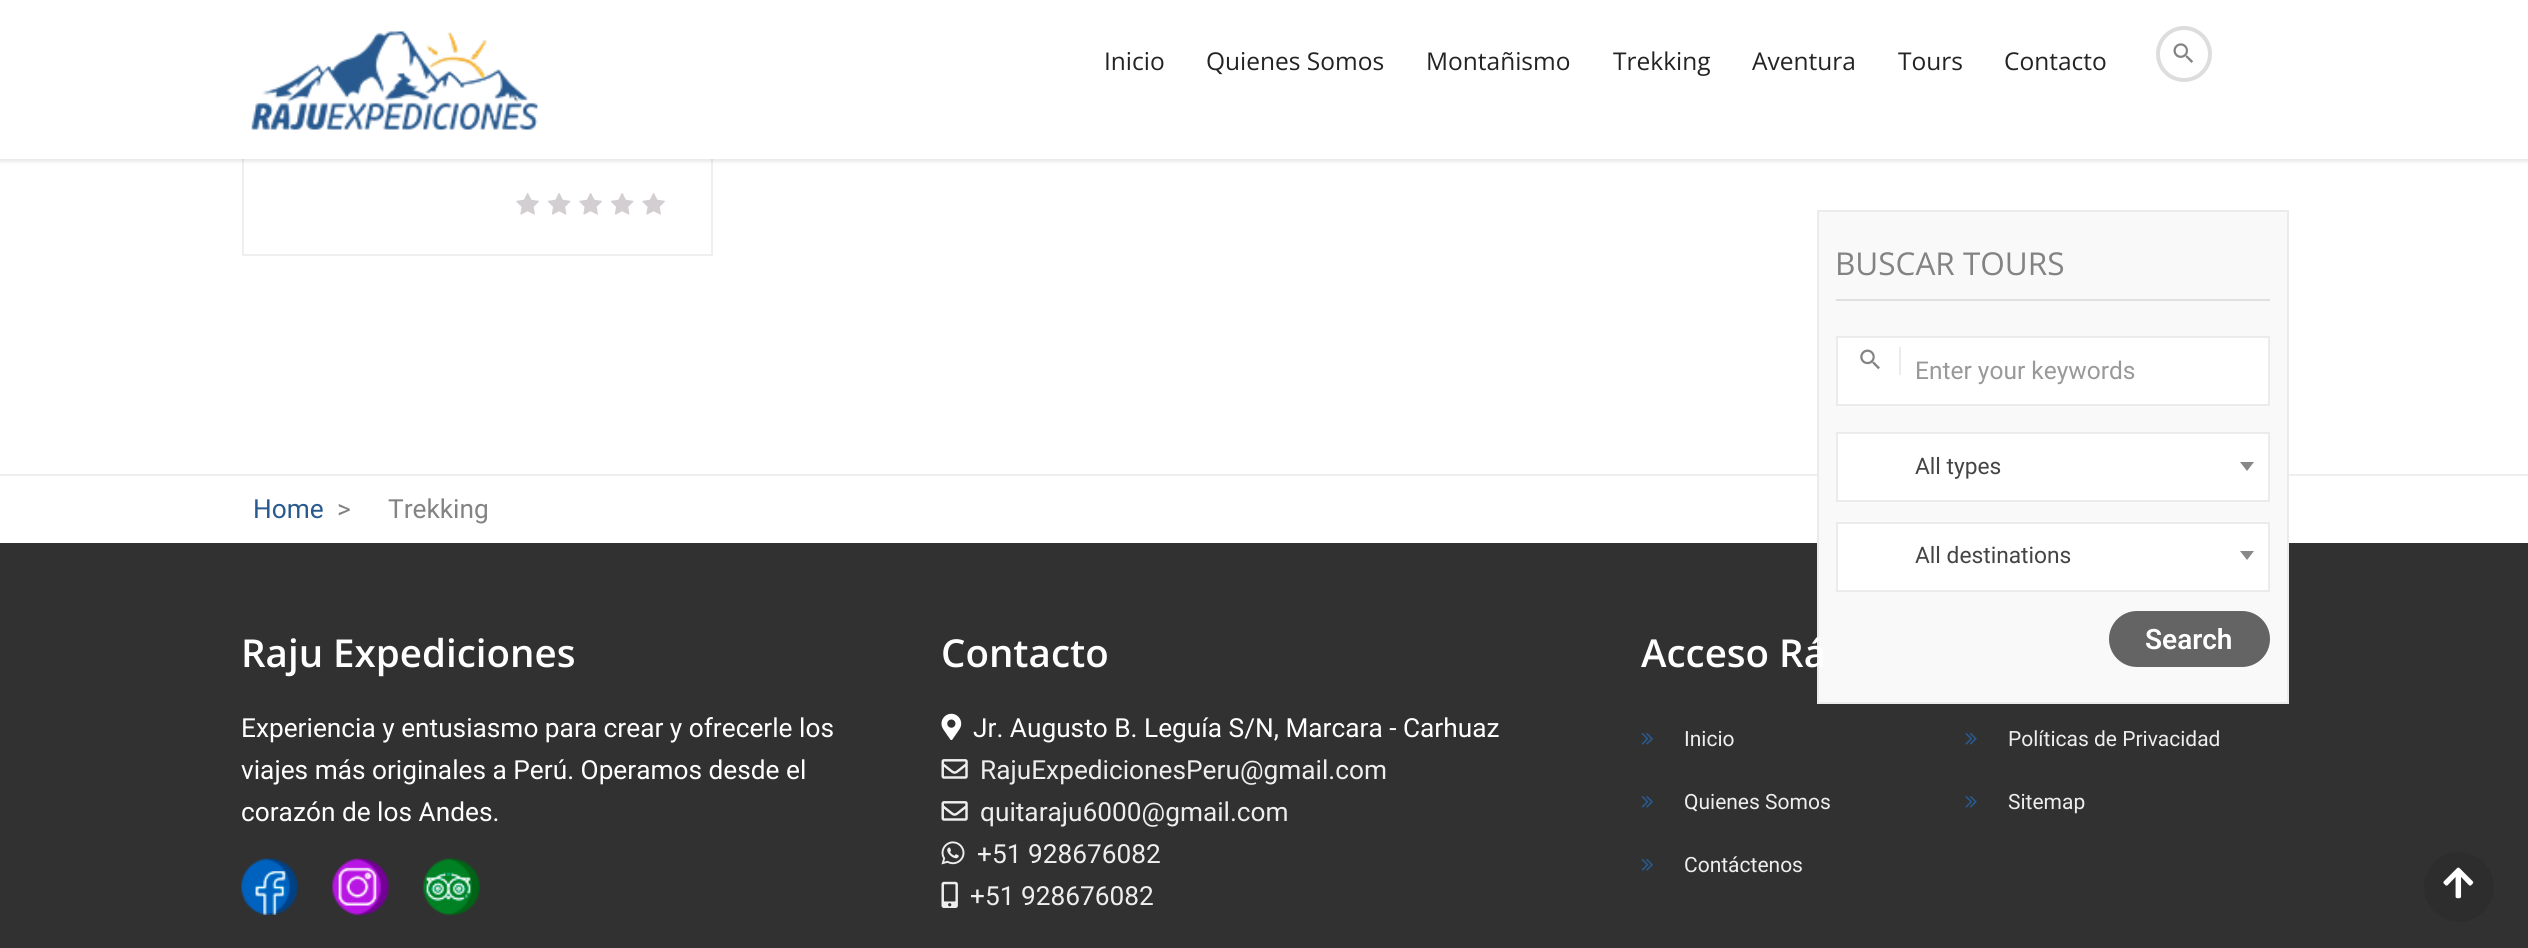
#include <cairo/cairo.h>
#include <math.h>
#include <stddef.h>

typedef struct { double x, y; const char *s; } line_t;
typedef struct { double x, y, w, h; unsigned color; } box_t;
static cairo_t *cr;

static void rgb(unsigned color)
{
	cairo_set_source_rgb(cr, (color >> 16) / 255.0, (color >> 8 & 255) / 255.0, (color & 255) / 255.0);
}

static void rrect(double x, double y, double w, double h, double r)
{
	cairo_new_sub_path(cr);
	cairo_arc(cr, x + w - r, y + h - r, r, 0, M_PI / 2);
	cairo_arc(cr, x + r, y + h - r, r, M_PI / 2, M_PI);
	cairo_arc(cr, x + r, y + r, r, M_PI, 1.5 * M_PI);
	cairo_arc(cr, x + w - r, y + r, r, 1.5 * M_PI, 2 * M_PI);
	cairo_close_path(cr);
}

static void soft_shadow(double x, double y, double w, double h, double r, double blur, double alpha)
{
	cairo_push_group_with_content(cr, CAIRO_CONTENT_ALPHA);
	cairo_set_operator(cr, CAIRO_OPERATOR_SOURCE);
	for (int i = 15; i >= -15 && fmin(w, h) + blur * i / 3 > 0; i -= 2) {
		double e = blur * i / 6;
		cairo_set_source_rgba(cr, 0, 0, 0, alpha * erfc((i - 1) / 8.5) / 2);
		rrect(x - e, y - e, w + 2 * e, h + 2 * e, fmax(0, fmin(r + e + blur * .6, fmin(w, h) / 2 + e)));
		cairo_fill(cr);
	}
	cairo_pattern_t *soft = cairo_pop_group(cr);
	cairo_mask(cr, soft);
	cairo_pattern_destroy(soft);
}

static void image(const char *path, double x, double y, double w, double h)
{
	cairo_surface_t *image = cairo_image_surface_create_from_png(path);
	cairo_save(cr);
	cairo_set_source_surface(cr, image, x, y);
	cairo_rectangle(cr, x, y, w, h);
	cairo_fill(cr);
	cairo_restore(cr);
	cairo_surface_destroy(image);
}

int main(void) {
	cairo_surface_t *surface = cairo_image_surface_create(CAIRO_FORMAT_RGB24, 2528, 948);
	cr = cairo_create(surface);
	cairo_font_options_t *options = cairo_font_options_create();
	cairo_font_options_set_hint_metrics(options, CAIRO_HINT_METRICS_OFF);
	cairo_font_options_set_hint_style(options, CAIRO_HINT_STYLE_NONE);
	cairo_set_font_options(cr, options);
	cairo_set_miter_limit(cr, 4);
	rgb(0xffffff);
	cairo_paint(cr);
	{
		static const box_t items[] = {
			{711, 159, 2, 97, 0xefefef},
			{242, 254, 470, 2, 0xefefef},
			{242, 159, 2, 97, 0xefefef},
		};
		for (size_t i = 0; i < sizeof items / sizeof *items; i++) {
			rgb(items[i].color);
			cairo_rectangle(cr, items[i].x, items[i].y, items[i].w, items[i].h);
			cairo_fill(cr);
		}
	}
	rgb(0x000000);
	soft_shadow(0, 2, 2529, 159, 0, 2.5, 0.12);
	rgb(0xffffff);
	cairo_rectangle(cr, 0, 0, 2528, 159);
	cairo_fill(cr);
	image("img/1.png", 251, 31, 287, 99);
	cairo_arc(cr, 2184, 54, 26, 0, 2 * M_PI);
	rgb(0xdddddd);
	cairo_set_line_width(cr, 4);
	cairo_stroke(cr);
	image("img/2.png", 2173, 43, 21, 20);
	rgb(0xefefef);
	cairo_rectangle(cr, 0, 474, 2528, 2);
	cairo_fill(cr);
	image("img/3.png", 516, 193, 149, 22);
	rgb(0x313131);
	cairo_rectangle(cr, 0, 543, 2528, 405);
	cairo_fill(cr);
	rgb(0xf9f9f9);
	cairo_rectangle(cr, 1818, 211, 470, 492);
	cairo_fill_preserve(cr);
	rgb(0xebebeb);
	cairo_set_line_width(cr, 2);
	cairo_stroke(cr);
	rgb(0xe0e0e0);
	cairo_rectangle(cr, 1836, 299, 434, 2);
	cairo_fill(cr);
	rgb(0xffffff);
	cairo_rectangle(cr, 1837, 337, 432, 68);
	cairo_fill_preserve(cr);
	rgb(0xebebeb);
	cairo_stroke(cr);
	cairo_rectangle(cr, 1899, 347, 2, 28);
	cairo_fill(cr);
	image("img/4.png", 1860, 349, 20, 21);
	rgb(0xffffff);
	cairo_rectangle(cr, 1837, 433, 432, 68);
	cairo_fill_preserve(cr);
	rgb(0xebebeb);
	cairo_stroke(cr);
	rgb(0x888888);
	cairo_new_path(cr);
	cairo_move_to(cr, 2240, 462);
	cairo_line_to(cr, 2254, 462);
	cairo_line_to(cr, 2247, 471);
	cairo_close_path(cr);
	cairo_fill(cr);
	rgb(0xffffff);
	cairo_rectangle(cr, 1837, 523, 432, 68);
	cairo_fill_preserve(cr);
	rgb(0xebebeb);
	cairo_stroke(cr);
	rgb(0x888888);
	cairo_new_path(cr);
	cairo_move_to(cr, 2240, 551);
	cairo_line_to(cr, 2254, 551);
	cairo_line_to(cr, 2247, 560);
	cairo_close_path(cr);
	cairo_fill(cr);
	rgb(0x646464);
	rrect(2109, 611, 161, 56, 28);
	cairo_fill(cr);
	image("img/5.png", 241, 858, 57, 57);
	image("img/6.png", 332, 858, 57, 57);
	image("img/7.png", 423, 858, 57, 57);
	image("img/8.png", 941, 713, 21, 27);
	image("img/9.png", 941, 759, 27, 20);
	image("img/9.png", 941, 801, 27, 20);
	image("img/10.png", 941, 841, 24, 24);
	image("img/11.png", 941, 881, 17, 27);
	image("img/12.png", 1641, 733, 12, 12);
	image("img/13.png", 1965, 733, 12, 12);
	image("img/12.png", 1641, 796, 12, 12);
	image("img/13.png", 1965, 796, 12, 12);
	image("img/12.png", 1641, 859, 12, 12);
	rgb(0x2d2d2d);
	cairo_arc(cr, 2459, 887, 35, 0, 2 * M_PI);
	cairo_fill(cr);
	image("img/14.png", 2443, 867, 31, 32);
	cairo_select_font_face(cr, "Open Sans", CAIRO_FONT_SLANT_NORMAL, CAIRO_FONT_WEIGHT_NORMAL);
	cairo_set_font_size(cr, 24.5);
	rgb(0x232323);
	{
		static const line_t items[] = {
			{1104, 70, "Inicio"},
			{1206, 70, "Quienes Somos"},
			{1426, 70, "Montañismo"},
			{1613, 70, "Trekking"},
			{1752, 70, "Aventura"},
			{1898, 70, "Tours"},
			{2004, 70, "Contacto"},
		};
		for (size_t i = 0; i < sizeof items / sizeof *items; i++) {
			cairo_move_to(cr, items[i].x, items[i].y);
			cairo_show_text(cr, items[i].s);
		}
	}
	cairo_select_font_face(cr, "Roboto", CAIRO_FONT_SLANT_NORMAL, CAIRO_FONT_WEIGHT_NORMAL);
	cairo_set_font_size(cr, 26.25);
	rgb(0x285a8f);
	cairo_move_to(cr, 253, 518);
	cairo_show_text(cr, "Home");
	rgb(0x838383);
	cairo_move_to(cr, 337, 518);
	cairo_show_text(cr, ">");
	cairo_move_to(cr, 388, 518);
	cairo_show_text(cr, "Trekking");
	cairo_select_font_face(cr, "Open Sans", CAIRO_FONT_SLANT_NORMAL, CAIRO_FONT_WEIGHT_NORMAL);
	cairo_set_font_size(cr, 31.5);
	cairo_move_to(cr, 1835, 275);
	cairo_show_text(cr, "BUSCAR TOURS");
	cairo_select_font_face(cr, "Roboto", CAIRO_FONT_SLANT_NORMAL, CAIRO_FONT_WEIGHT_NORMAL);
	cairo_set_font_size(cr, 24.5);
	rgb(0x999999);
	cairo_move_to(cr, 1915, 379);
	cairo_show_text(cr, "Enter your keywords");
	cairo_set_font_size(cr, 22.75);
	rgb(0x444444);
	cairo_move_to(cr, 1915, 474);
	cairo_show_text(cr, "All types");
	cairo_move_to(cr, 1915, 563);
	cairo_show_text(cr, "All destinations");
	cairo_select_font_face(cr, "Roboto SemiBold", CAIRO_FONT_SLANT_NORMAL, CAIRO_FONT_WEIGHT_NORMAL);
	cairo_set_font_size(cr, 28);
	rgb(0xffffff);
	cairo_move_to(cr, 2145, 649);
	cairo_show_text(cr, "Search");
	cairo_select_font_face(cr, "Open Sans SemiBold", CAIRO_FONT_SLANT_NORMAL, CAIRO_FONT_WEIGHT_NORMAL);
	cairo_set_font_size(cr, 38.5);
	cairo_move_to(cr, 241, 667);
	cairo_show_text(cr, "Raju Expediciones");
	cairo_select_font_face(cr, "Roboto", CAIRO_FONT_SLANT_NORMAL, CAIRO_FONT_WEIGHT_NORMAL);
	cairo_set_font_size(cr, 26.25);
	{
		static const line_t items[] = {
			{241, 737, "Experiencia y entusiasmo para crear y ofrecerle los"},
			{241, 779, "viajes más originales a Perú. Operamos desde el"},
			{241, 821, "corazón de los Andes."},
		};
		for (size_t i = 0; i < sizeof items / sizeof *items; i++) {
			cairo_move_to(cr, items[i].x, items[i].y);
			cairo_show_text(cr, items[i].s);
		}
	}
	cairo_select_font_face(cr, "Open Sans SemiBold", CAIRO_FONT_SLANT_NORMAL, CAIRO_FONT_WEIGHT_NORMAL);
	cairo_set_font_size(cr, 38.5);
	cairo_move_to(cr, 941, 667);
	cairo_show_text(cr, "Contacto");
	cairo_select_font_face(cr, "Roboto", CAIRO_FONT_SLANT_NORMAL, CAIRO_FONT_WEIGHT_NORMAL);
	cairo_set_font_size(cr, 26.25);
	cairo_move_to(cr, 973, 737);
	cairo_show_text(cr, "Jr. Augusto B. Leguía S/N, Marcara - Carhuaz");
	rgb(0xeeeeee);
	{
		static const line_t items[] = {
			{980, 779, "RajuExpedicionesPeru@gmail.com"},
			{980, 821, "quitaraju6000@gmail.com"},
			{977, 863, "+51 928676082"},
			{970, 905, "+51 928676082"},
		};
		for (size_t i = 0; i < sizeof items / sizeof *items; i++) {
			cairo_move_to(cr, items[i].x, items[i].y);
			cairo_show_text(cr, items[i].s);
		}
	}
	cairo_select_font_face(cr, "Open Sans SemiBold", CAIRO_FONT_SLANT_NORMAL, CAIRO_FONT_WEIGHT_NORMAL);
	cairo_set_font_size(cr, 38.5);
	rgb(0xffffff);
	cairo_move_to(cr, 1641, 667);
	cairo_show_text(cr, "Acceso Rá");
	cairo_select_font_face(cr, "Roboto", CAIRO_FONT_SLANT_NORMAL, CAIRO_FONT_WEIGHT_NORMAL);
	cairo_set_font_size(cr, 21);
	rgb(0xeeeeee);
	{
		static const line_t items[] = {
			{1684, 746, "Inicio"},
			{2008, 746, "Políticas de Privacidad"},
			{1684, 809, "Quienes Somos"},
			{2008, 809, "Sitemap"},
			{1684, 872, "Contáctenos"},
		};
		for (size_t i = 0; i < sizeof items / sizeof *items; i++) {
			cairo_move_to(cr, items[i].x, items[i].y);
			cairo_show_text(cr, items[i].s);
		}
	}
	cairo_surface_write_to_png(surface, "page.png");
	cairo_font_options_destroy(options);
	cairo_destroy(cr);
	cairo_surface_destroy(surface);
	return 0;
}
